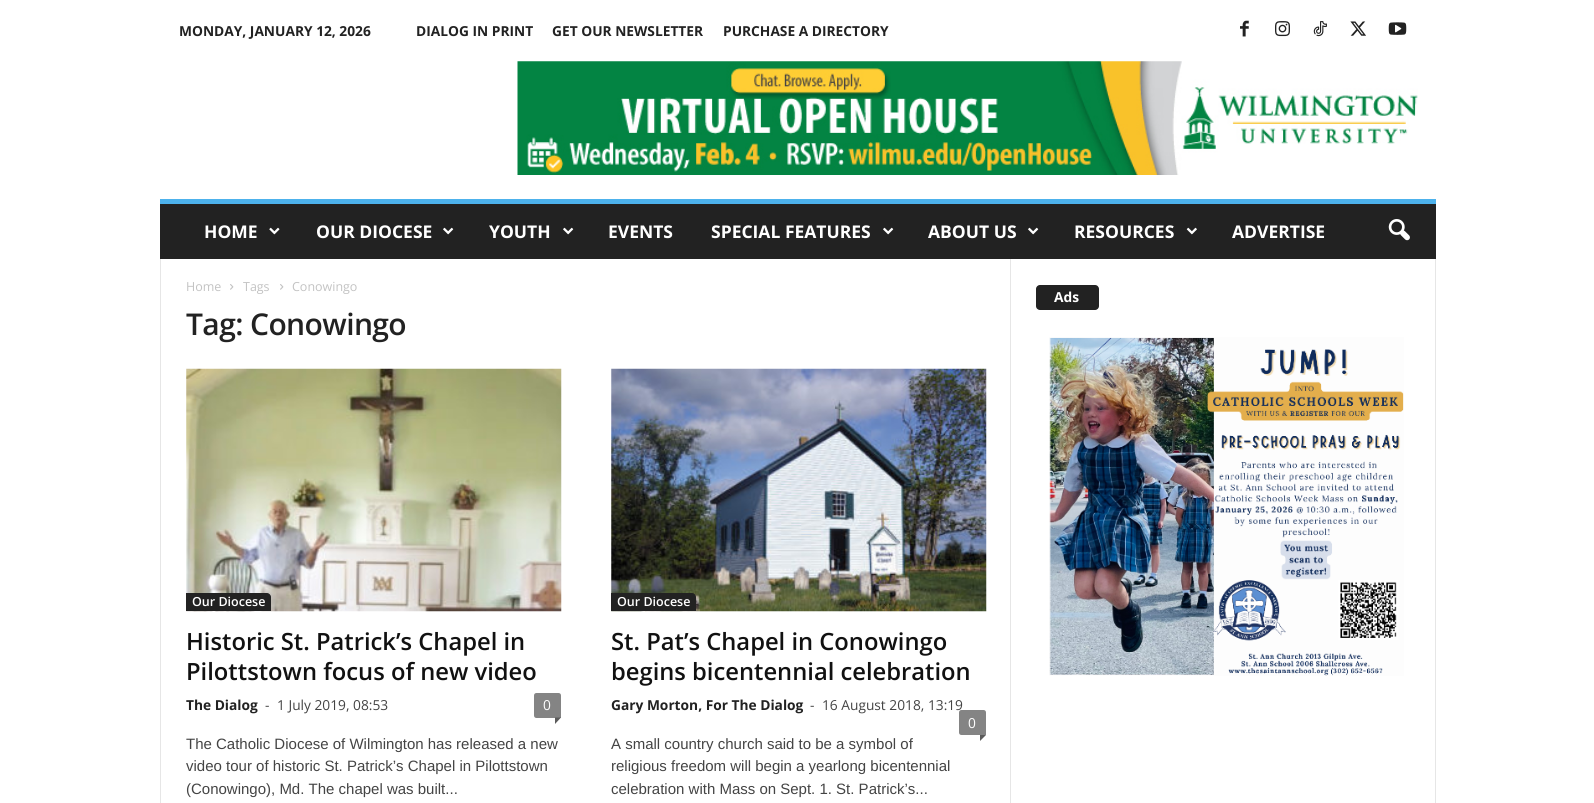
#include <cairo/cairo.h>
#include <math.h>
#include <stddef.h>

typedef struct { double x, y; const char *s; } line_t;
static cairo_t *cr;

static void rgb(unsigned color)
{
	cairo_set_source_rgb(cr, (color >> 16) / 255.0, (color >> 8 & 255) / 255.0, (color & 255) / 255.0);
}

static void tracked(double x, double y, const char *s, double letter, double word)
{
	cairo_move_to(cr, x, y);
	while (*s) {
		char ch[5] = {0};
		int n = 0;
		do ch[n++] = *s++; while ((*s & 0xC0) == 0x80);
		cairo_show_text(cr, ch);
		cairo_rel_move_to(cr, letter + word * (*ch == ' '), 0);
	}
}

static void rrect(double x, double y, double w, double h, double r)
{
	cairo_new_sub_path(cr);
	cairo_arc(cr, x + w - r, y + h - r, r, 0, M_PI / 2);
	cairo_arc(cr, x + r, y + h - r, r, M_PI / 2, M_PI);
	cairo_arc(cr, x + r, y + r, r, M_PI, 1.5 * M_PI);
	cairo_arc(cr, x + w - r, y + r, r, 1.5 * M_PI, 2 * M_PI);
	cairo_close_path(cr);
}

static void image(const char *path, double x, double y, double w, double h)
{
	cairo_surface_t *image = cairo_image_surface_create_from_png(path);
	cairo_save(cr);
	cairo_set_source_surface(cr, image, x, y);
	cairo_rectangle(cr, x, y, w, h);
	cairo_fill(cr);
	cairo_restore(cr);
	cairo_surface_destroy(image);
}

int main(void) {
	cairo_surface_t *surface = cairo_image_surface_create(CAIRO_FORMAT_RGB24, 1594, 803);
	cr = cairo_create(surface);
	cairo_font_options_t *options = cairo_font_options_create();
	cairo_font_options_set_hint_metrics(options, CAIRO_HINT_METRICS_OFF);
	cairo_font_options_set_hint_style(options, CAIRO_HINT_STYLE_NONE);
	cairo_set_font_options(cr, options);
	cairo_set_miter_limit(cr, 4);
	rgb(0xffffff);
	cairo_paint(cr);
	image("img/1.png", 1240, 20, 9, 17);
	image("img/2.png", 1275, 21, 15, 16);
	image("img/3.png", 1313, 21, 14, 16);
	image("img/4.png", 1350, 21, 16, 15);
	image("img/5.png", 1388, 22, 19, 13);
	image("img/6.png", 517, 61, 901, 114);
	rgb(0x222222);
	cairo_rectangle(cr, 160, 204, 1276, 55);
	cairo_fill(cr);
	rgb(0x4db2ec);
	cairo_rectangle(cr, 160, 199, 1276, 5);
	cairo_fill(cr);
	image("img/7.png", 269, 227, 11, 8);
	image("img/8.png", 443, 227, 11, 8);
	image("img/8.png", 563, 227, 11, 8);
	image("img/8.png", 883, 227, 11, 8);
	image("img/8.png", 1028, 227, 11, 8);
	image("img/9.png", 1186, 227, 11, 8);
	image("img/10.png", 1388, 219, 22, 22);
	rgb(0xe6e6e6);
	cairo_rectangle(cr, 160, 259, 1, 544);
	cairo_fill(cr);
	image("img/11.png", 230, 284, 4, 6);
	image("img/11.png", 280, 284, 4, 6);
	image("img/12.png", 186, 368, 376, 244);
	rgb(0x222222);
	cairo_new_path(cr);
	cairo_move_to(cr, 186, 593);
	cairo_line_to(cr, 267, 593);
	cairo_curve_to(cr, 269, 593, 271, 595, 271, 597);
	cairo_line_to(cr, 271, 611);
	cairo_line_to(cr, 186, 611);
	cairo_close_path(cr);
	cairo_fill(cr);
	rgb(0x848484);
	cairo_new_path(cr);
	cairo_move_to(cr, 536.5, 693);
	cairo_line_to(cr, 558.5, 693);
	cairo_curve_to(cr, 560, 693, 561, 694, 561, 695.5);
	cairo_line_to(cr, 561, 718);
	cairo_line_to(cr, 536.5, 718);
	cairo_curve_to(cr, 535, 718, 534, 717, 534, 715.5);
	cairo_line_to(cr, 534, 695.5);
	cairo_curve_to(cr, 534, 694, 535, 693, 536.5, 693);
	cairo_close_path(cr);
	cairo_fill(cr);
	rgb(0x5b5b5b);
	cairo_new_path(cr);
	cairo_move_to(cr, 555, 717.5);
	cairo_line_to(cr, 561, 717.5);
	cairo_line_to(cr, 555, 724);
	cairo_close_path(cr);
	cairo_fill(cr);
	image("img/13.png", 611, 368, 376, 244);
	rgb(0x222222);
	cairo_new_path(cr);
	cairo_move_to(cr, 611, 593);
	cairo_line_to(cr, 692, 593);
	cairo_curve_to(cr, 694, 593, 696, 595, 696, 597);
	cairo_line_to(cr, 696, 611);
	cairo_line_to(cr, 611, 611);
	cairo_close_path(cr);
	cairo_fill(cr);
	rgb(0x5b5b5b);
	cairo_new_path(cr);
	cairo_move_to(cr, 980, 735);
	cairo_line_to(cr, 986, 735);
	cairo_line_to(cr, 980, 741);
	cairo_close_path(cr);
	cairo_fill(cr);
	rgb(0xe6e6e6);
	cairo_rectangle(cr, 1010, 259, 1, 544);
	cairo_fill(cr);
	rgb(0x222222);
	rrect(1036, 285, 63, 25, 4);
	cairo_fill(cr);
	image("img/14.png", 1049, 337, 355, 339);
	rgb(0xe6e6e6);
	cairo_rectangle(cr, 1435, 259, 1, 544);
	cairo_fill(cr);
	cairo_select_font_face(cr, "Open Sans", CAIRO_FONT_SLANT_NORMAL, CAIRO_FONT_WEIGHT_BOLD);
	cairo_set_font_size(cr, 13.75);
	rgb(0x222222);
	{
		static const line_t items[] = {
			{179, 36, "MONDAY, JANUARY 12, 2026"},
			{416, 36, "DIALOG IN PRINT"},
			{552, 36, "GET OUR NEWSLETTER"},
			{723, 36, "PURCHASE A DIRECTORY"},
		};
		for (size_t i = 0; i < sizeof items / sizeof *items; i++) {
			cairo_move_to(cr, items[i].x, items[i].y);
			cairo_show_text(cr, items[i].s);
		}
	}
	cairo_set_font_size(cr, 17.5);
	rgb(0xffffff);
	{
		static const line_t items[] = {
			{204, 238, "HOME"},
			{316, 238, "OUR DIOCESE"},
			{489, 238, "YOUTH"},
			{608, 238, "EVENTS"},
			{711, 238, "SPECIAL FEATURES"},
			{928, 238, "ABOUT US"},
			{1074, 238, "RESOURCES"},
			{1232, 238, "ADVERTISE"},
		};
		for (size_t i = 0; i < sizeof items / sizeof *items; i++) {
			cairo_move_to(cr, items[i].x, items[i].y);
			cairo_show_text(cr, items[i].s);
		}
	}
	cairo_select_font_face(cr, "Open Sans", CAIRO_FONT_SLANT_NORMAL, CAIRO_FONT_WEIGHT_NORMAL);
	cairo_set_font_size(cr, 12.5);
	rgb(0xc3c3c3);
	{
		static const line_t items[] = {
			{186, 291, "Home"},
			{243, 291, "Tags"},
			{292, 291, "Conowingo"},
		};
		for (size_t i = 0; i < sizeof items / sizeof *items; i++) {
			cairo_move_to(cr, items[i].x, items[i].y);
			cairo_show_text(cr, items[i].s);
		}
	}
	cairo_select_font_face(cr, "Open Sans SemiBold", CAIRO_FONT_SLANT_NORMAL, CAIRO_FONT_WEIGHT_NORMAL);
	cairo_set_font_size(cr, 30);
	rgb(0x222222);
	tracked(186, 335, "Tag: Conowingo", -0.6, 0);
	cairo_set_font_size(cr, 12.5);
	rgb(0xffffff);
	cairo_move_to(cr, 192, 606);
	cairo_show_text(cr, "Our Diocese");
	cairo_set_font_size(cr, 23.75);
	rgb(0x111111);
	cairo_move_to(cr, 186, 650);
	cairo_show_text(cr, "Historic St. Patrick’s Chapel in");
	cairo_move_to(cr, 186, 680);
	cairo_show_text(cr, "Pilottstown focus of new video");
	cairo_select_font_face(cr, "Open Sans", CAIRO_FONT_SLANT_NORMAL, CAIRO_FONT_WEIGHT_BOLD);
	cairo_set_font_size(cr, 13.75);
	rgb(0x222222);
	cairo_move_to(cr, 186, 710);
	cairo_show_text(cr, "The Dialog");
	cairo_select_font_face(cr, "Open Sans", CAIRO_FONT_SLANT_NORMAL, CAIRO_FONT_WEIGHT_NORMAL);
	rgb(0x444444);
	cairo_move_to(cr, 265, 710);
	cairo_show_text(cr, "-");
	cairo_move_to(cr, 277, 710);
	cairo_show_text(cr, "1 July 2019, 08:53");
	rgb(0xffffff);
	cairo_move_to(cr, 543, 710);
	cairo_show_text(cr, "0");
	cairo_select_font_face(cr, "Liberation Sans", CAIRO_FONT_SLANT_NORMAL, CAIRO_FONT_WEIGHT_NORMAL);
	cairo_set_font_size(cr, 15);
	rgb(0x444444);
	{
		static const line_t items[] = {
			{186, 749, "The Catholic Diocese of Wilmington has released a new"},
			{186, 771, "video tour of historic St. Patrick’s Chapel in Pilottstown"},
			{186, 794, "(Conowingo), Md. The chapel was built..."},
		};
		for (size_t i = 0; i < sizeof items / sizeof *items; i++) {
			cairo_move_to(cr, items[i].x, items[i].y);
			cairo_show_text(cr, items[i].s);
		}
	}
	cairo_select_font_face(cr, "Open Sans SemiBold", CAIRO_FONT_SLANT_NORMAL, CAIRO_FONT_WEIGHT_NORMAL);
	cairo_set_font_size(cr, 12.5);
	rgb(0xffffff);
	cairo_move_to(cr, 617, 606);
	cairo_show_text(cr, "Our Diocese");
	cairo_set_font_size(cr, 23.75);
	rgb(0x111111);
	cairo_move_to(cr, 611, 650);
	cairo_show_text(cr, "St. Pat’s Chapel in Conowingo");
	cairo_move_to(cr, 611, 680);
	cairo_show_text(cr, "begins bicentennial celebration");
	cairo_select_font_face(cr, "Open Sans", CAIRO_FONT_SLANT_NORMAL, CAIRO_FONT_WEIGHT_BOLD);
	cairo_set_font_size(cr, 13.75);
	rgb(0x222222);
	cairo_move_to(cr, 611, 710);
	cairo_show_text(cr, "Gary Morton, For The Dialog");
	cairo_select_font_face(cr, "Open Sans", CAIRO_FONT_SLANT_NORMAL, CAIRO_FONT_WEIGHT_NORMAL);
	rgb(0x444444);
	cairo_move_to(cr, 810, 710);
	cairo_show_text(cr, "-");
	cairo_move_to(cr, 822, 710);
	cairo_show_text(cr, "16 August 2018, 13:19");
	rgb(0x848484);
	cairo_new_path(cr);
	cairo_move_to(cr, 961.5, 710);
	cairo_line_to(cr, 983.5, 710);
	cairo_curve_to(cr, 985, 710, 986, 711, 986, 712.5);
	cairo_line_to(cr, 986, 735);
	cairo_line_to(cr, 961.5, 735);
	cairo_curve_to(cr, 960, 735, 959, 734, 959, 732.5);
	cairo_line_to(cr, 959, 712.5);
	cairo_curve_to(cr, 959, 711, 960, 710, 961.5, 710);
	cairo_close_path(cr);
	cairo_fill(cr);
	rgb(0xffffff);
	cairo_move_to(cr, 968, 728);
	cairo_show_text(cr, "0");
	cairo_select_font_face(cr, "Liberation Sans", CAIRO_FONT_SLANT_NORMAL, CAIRO_FONT_WEIGHT_NORMAL);
	cairo_set_font_size(cr, 15);
	rgb(0x444444);
	{
		static const line_t items[] = {
			{611, 749, "A small country church said to be a symbol of"},
			{611, 771, "religious freedom will begin a yearlong bicentennial"},
			{611, 794, "celebration with Mass on Sept. 1. St. Patrick’s..."},
		};
		for (size_t i = 0; i < sizeof items / sizeof *items; i++) {
			cairo_move_to(cr, items[i].x, items[i].y);
			cairo_show_text(cr, items[i].s);
		}
	}
	cairo_select_font_face(cr, "Open Sans", CAIRO_FONT_SLANT_NORMAL, CAIRO_FONT_WEIGHT_BOLD);
	cairo_set_font_size(cr, 13.75);
	rgb(0xffffff);
	cairo_move_to(cr, 1054, 302);
	cairo_show_text(cr, "Ads");
	cairo_surface_write_to_png(surface, "page.png");
	cairo_font_options_destroy(options);
	cairo_destroy(cr);
	cairo_surface_destroy(surface);
	return 0;
}
